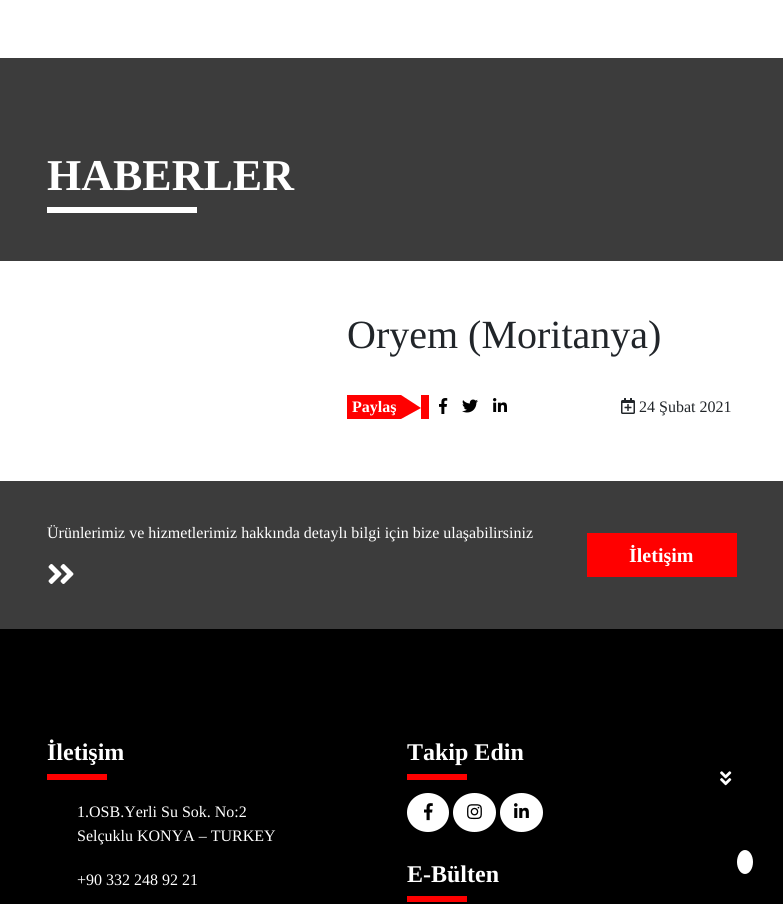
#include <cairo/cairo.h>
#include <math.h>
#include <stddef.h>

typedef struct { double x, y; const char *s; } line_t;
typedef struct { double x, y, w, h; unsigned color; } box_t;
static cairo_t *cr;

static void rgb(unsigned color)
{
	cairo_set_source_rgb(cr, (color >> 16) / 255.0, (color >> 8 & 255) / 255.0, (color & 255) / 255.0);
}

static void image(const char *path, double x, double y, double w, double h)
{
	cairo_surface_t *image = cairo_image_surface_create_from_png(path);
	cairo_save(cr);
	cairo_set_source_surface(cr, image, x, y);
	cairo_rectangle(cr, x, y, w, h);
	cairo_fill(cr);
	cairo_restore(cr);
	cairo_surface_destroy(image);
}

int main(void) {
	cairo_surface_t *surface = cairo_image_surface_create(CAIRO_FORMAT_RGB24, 783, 904);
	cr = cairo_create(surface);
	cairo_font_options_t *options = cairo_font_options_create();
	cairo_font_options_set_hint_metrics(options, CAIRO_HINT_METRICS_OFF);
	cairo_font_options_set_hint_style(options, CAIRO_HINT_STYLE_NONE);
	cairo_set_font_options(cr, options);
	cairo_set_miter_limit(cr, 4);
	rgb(0xffffff);
	cairo_paint(cr);
	{
		static const box_t items[] = {
			{0, 58, 783, 203, 0x3c3c3c},
			{47, 207, 150, 6, 0xffffff},
			{347, 395, 82, 24, 0xff0000},
			{401, 395, 20, 24, 0xffffff},
		};
		for (size_t i = 0; i < sizeof items / sizeof *items; i++) {
			rgb(items[i].color);
			cairo_rectangle(cr, items[i].x, items[i].y, items[i].w, items[i].h);
			cairo_fill(cr);
		}
	}
	rgb(0xff0000);
	cairo_new_path(cr);
	cairo_move_to(cr, 401, 419);
	cairo_line_to(cr, 401, 395);
	cairo_line_to(cr, 421, 408);
	cairo_close_path(cr);
	cairo_fill(cr);
	image("img/1.png", 439, 398, 9, 16);
	image("img/2.png", 462, 399, 16, 14);
	image("img/3.png", 493, 398, 14, 14);
	image("img/4.png", 621, 398, 14, 16);
	rgb(0x000000);
	cairo_rectangle(cr, 0, 629, 783, 275);
	cairo_fill(cr);
	rgb(0x3c3c3c);
	cairo_rectangle(cr, 0, 481, 783, 148);
	cairo_fill(cr);
	image("img/5.png", 48, 564, 26, 20);
	{
		static const box_t items[] = {
			{587, 533, 150, 44, 0xff0000},
			{47, 774, 60, 6, 0xff0000},
			{407, 774, 60, 6, 0xff0000},
		};
		for (size_t i = 0; i < sizeof items / sizeof *items; i++) {
			rgb(items[i].color);
			cairo_rectangle(cr, items[i].x, items[i].y, items[i].w, items[i].h);
			cairo_fill(cr);
		}
	}
	rgb(0xffffff);
	cairo_new_path(cr);
	cairo_move_to(cr, 428, 793);
	cairo_curve_to(cr, 439.5, 793, 449, 801.5, 449, 812.5);
	cairo_curve_to(cr, 449, 823.5, 439.5, 832, 428, 832);
	cairo_curve_to(cr, 416.5, 832, 407, 823.5, 407, 812.5);
	cairo_curve_to(cr, 407, 801.5, 416.5, 793, 428, 793);
	cairo_close_path(cr);
	cairo_fill(cr);
	image("img/6.png", 424, 803, 9, 18);
	cairo_new_path(cr);
	cairo_move_to(cr, 474.5, 793);
	cairo_curve_to(cr, 486.5, 793, 496, 801.5, 496, 812.5);
	cairo_curve_to(cr, 496, 823.5, 486.5, 832, 474.5, 832);
	cairo_curve_to(cr, 462.5, 832, 453, 823.5, 453, 812.5);
	cairo_curve_to(cr, 453, 801.5, 462.5, 793, 474.5, 793);
	cairo_close_path(cr);
	cairo_fill(cr);
	image("img/7.png", 467, 804, 15, 16);
	cairo_new_path(cr);
	cairo_move_to(cr, 521.5, 793);
	cairo_curve_to(cr, 533.5, 793, 543, 801.5, 543, 812.5);
	cairo_curve_to(cr, 543, 823.5, 533.5, 832, 521.5, 832);
	cairo_curve_to(cr, 509.5, 832, 500, 823.5, 500, 812.5);
	cairo_curve_to(cr, 500, 801.5, 509.5, 793, 521.5, 793);
	cairo_close_path(cr);
	cairo_fill(cr);
	image("img/8.png", 514, 803, 15, 15);
	rgb(0xff0000);
	cairo_rectangle(cr, 407, 896, 60, 6);
	cairo_fill(cr);
	image("img/9.png", 720, 771, 12, 15);
	rgb(0xffffff);
	cairo_new_path(cr);
	cairo_move_to(cr, 745, 850);
	cairo_curve_to(cr, 749.5, 850, 753, 855.5, 753, 862);
	cairo_curve_to(cr, 753, 868.5, 749.5, 874, 745, 874);
	cairo_curve_to(cr, 740.5, 874, 737, 868.5, 737, 862);
	cairo_curve_to(cr, 737, 855.5, 740.5, 850, 745, 850);
	cairo_close_path(cr);
	cairo_fill(cr);
	cairo_select_font_face(cr, "Liberation Serif", CAIRO_FONT_SLANT_NORMAL, CAIRO_FONT_WEIGHT_BOLD);
	cairo_set_font_size(cr, 44);
	cairo_move_to(cr, 47, 190);
	cairo_show_text(cr, "HABERLER");
	cairo_select_font_face(cr, "Liberation Serif", CAIRO_FONT_SLANT_NORMAL, CAIRO_FONT_WEIGHT_NORMAL);
	cairo_set_font_size(cr, 40);
	rgb(0x212529);
	cairo_move_to(cr, 347, 348);
	cairo_show_text(cr, "Oryem (Moritanya)");
	cairo_select_font_face(cr, "Liberation Serif", CAIRO_FONT_SLANT_NORMAL, CAIRO_FONT_WEIGHT_BOLD);
	cairo_set_font_size(cr, 16);
	rgb(0xffffff);
	cairo_move_to(cr, 352, 412);
	cairo_show_text(cr, "Paylaş");
	cairo_select_font_face(cr, "Liberation Serif", CAIRO_FONT_SLANT_NORMAL, CAIRO_FONT_WEIGHT_NORMAL);
	rgb(0x212529);
	cairo_move_to(cr, 639, 412);
	cairo_show_text(cr, "24 Şubat 2021");
	rgb(0xffffff);
	cairo_move_to(cr, 47, 538);
	cairo_show_text(cr, "Ürünlerimiz ve hizmetlerimiz hakkında detaylı bilgi için bize ulaşabilirsiniz");
	cairo_select_font_face(cr, "Liberation Serif", CAIRO_FONT_SLANT_NORMAL, CAIRO_FONT_WEIGHT_BOLD);
	cairo_set_font_size(cr, 20);
	cairo_move_to(cr, 629, 562);
	cairo_show_text(cr, "İletişim");
	cairo_set_font_size(cr, 24);
	cairo_move_to(cr, 47, 760);
	cairo_show_text(cr, "İletişim");
	cairo_select_font_face(cr, "Liberation Serif", CAIRO_FONT_SLANT_NORMAL, CAIRO_FONT_WEIGHT_NORMAL);
	cairo_set_font_size(cr, 16);
	{
		static const line_t items[] = {
			{77, 817, "1.OSB.Yerli Su Sok. No:2"},
			{77, 841, "Selçuklu KONYA – TURKEY"},
			{77, 885, "+90 332 248 92 21"},
		};
		for (size_t i = 0; i < sizeof items / sizeof *items; i++) {
			cairo_move_to(cr, items[i].x, items[i].y);
			cairo_show_text(cr, items[i].s);
		}
	}
	cairo_select_font_face(cr, "Liberation Serif", CAIRO_FONT_SLANT_NORMAL, CAIRO_FONT_WEIGHT_BOLD);
	cairo_set_font_size(cr, 24);
	cairo_move_to(cr, 407, 760);
	cairo_show_text(cr, "Takip Edin");
	cairo_move_to(cr, 407, 882);
	cairo_show_text(cr, "E-Bülten");
	cairo_surface_write_to_png(surface, "page.png");
	cairo_font_options_destroy(options);
	cairo_destroy(cr);
	cairo_surface_destroy(surface);
	return 0;
}
